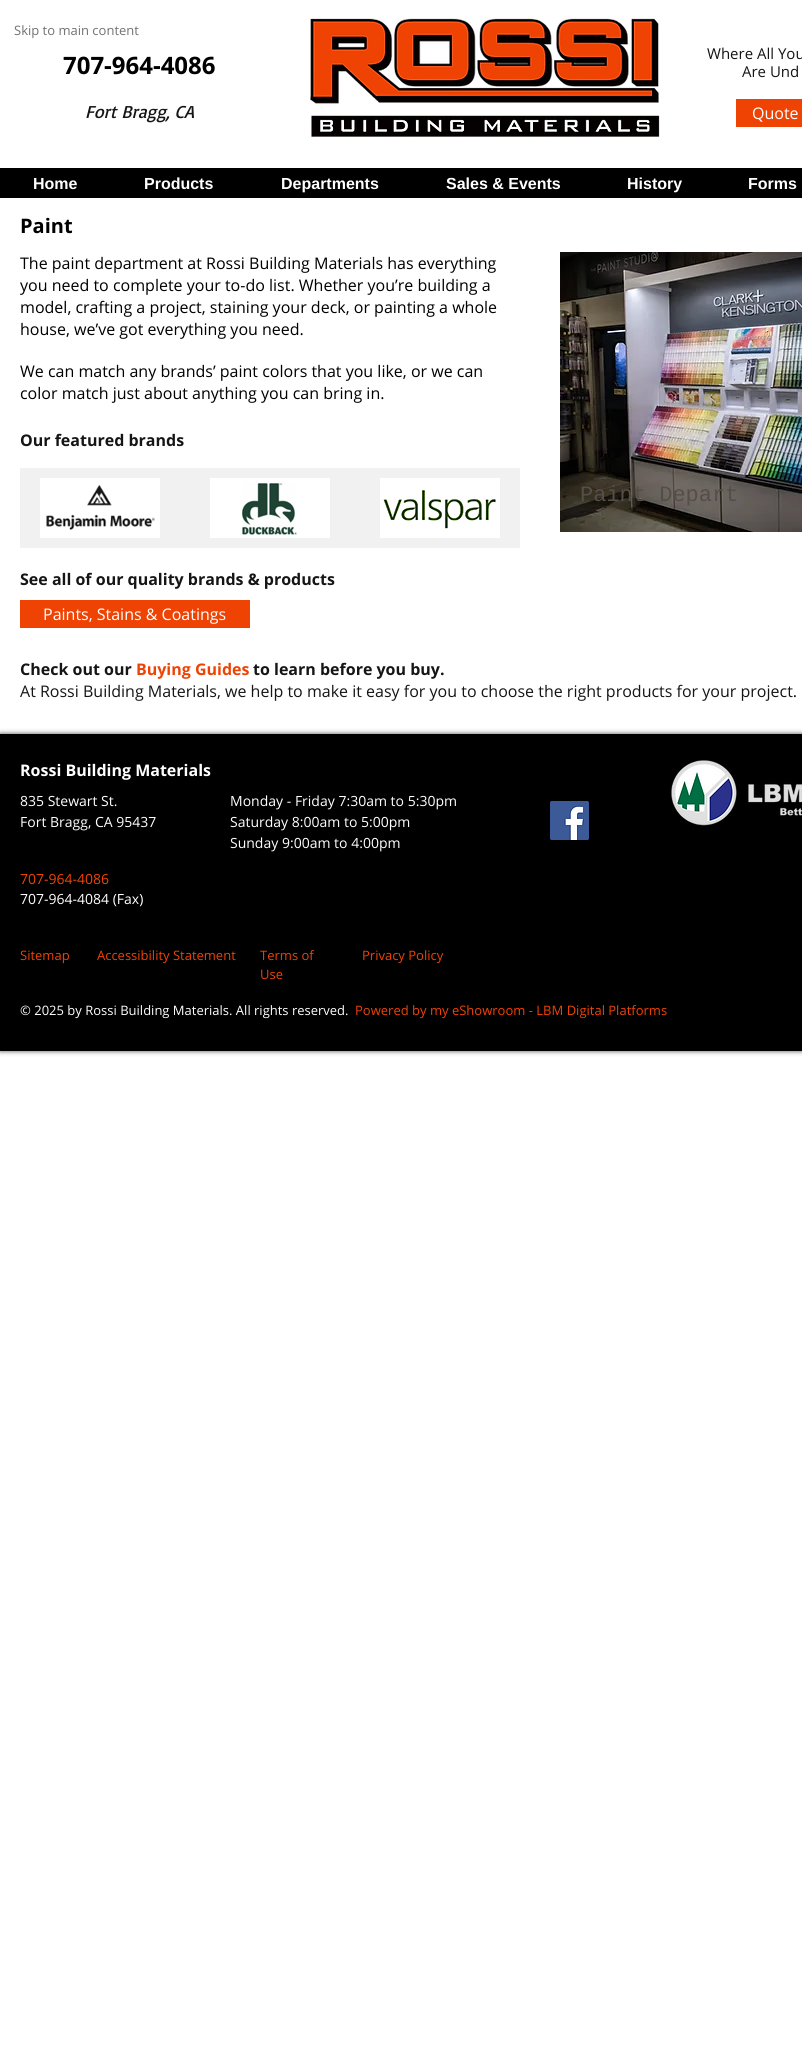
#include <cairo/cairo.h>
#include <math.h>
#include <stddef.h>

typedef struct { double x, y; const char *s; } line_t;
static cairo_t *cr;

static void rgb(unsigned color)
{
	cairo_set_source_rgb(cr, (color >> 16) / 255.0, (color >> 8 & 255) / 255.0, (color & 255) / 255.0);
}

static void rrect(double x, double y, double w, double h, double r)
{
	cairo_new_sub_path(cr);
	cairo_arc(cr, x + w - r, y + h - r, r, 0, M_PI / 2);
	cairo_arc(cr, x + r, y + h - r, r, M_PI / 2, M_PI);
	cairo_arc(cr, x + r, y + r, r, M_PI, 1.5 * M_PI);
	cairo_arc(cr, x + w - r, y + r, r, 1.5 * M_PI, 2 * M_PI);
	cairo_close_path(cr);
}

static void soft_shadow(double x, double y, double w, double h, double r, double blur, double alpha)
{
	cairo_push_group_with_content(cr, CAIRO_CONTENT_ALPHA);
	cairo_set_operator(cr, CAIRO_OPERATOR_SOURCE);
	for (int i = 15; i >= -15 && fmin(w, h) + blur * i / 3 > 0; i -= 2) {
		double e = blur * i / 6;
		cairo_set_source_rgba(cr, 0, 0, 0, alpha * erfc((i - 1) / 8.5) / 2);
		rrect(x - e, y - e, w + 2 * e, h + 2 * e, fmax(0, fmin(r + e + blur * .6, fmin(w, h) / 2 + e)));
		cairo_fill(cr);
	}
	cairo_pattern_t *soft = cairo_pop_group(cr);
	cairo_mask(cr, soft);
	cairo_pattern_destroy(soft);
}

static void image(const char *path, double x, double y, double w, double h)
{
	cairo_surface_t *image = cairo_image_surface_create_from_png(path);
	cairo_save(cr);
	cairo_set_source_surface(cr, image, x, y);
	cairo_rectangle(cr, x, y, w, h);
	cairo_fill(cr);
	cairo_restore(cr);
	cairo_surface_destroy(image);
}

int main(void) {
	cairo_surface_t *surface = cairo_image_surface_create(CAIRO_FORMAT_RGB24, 802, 2068);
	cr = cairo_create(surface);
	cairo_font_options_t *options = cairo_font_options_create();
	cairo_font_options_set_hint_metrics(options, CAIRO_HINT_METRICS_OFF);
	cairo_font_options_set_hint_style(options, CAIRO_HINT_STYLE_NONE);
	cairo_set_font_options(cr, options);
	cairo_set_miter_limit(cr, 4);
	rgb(0xffffff);
	cairo_paint(cr);
	rgb(0xf1f1f1);
	cairo_rectangle(cr, 20, 468, 500, 80);
	cairo_fill(cr);
	image("img/1.png", 40, 478, 120, 60);
	image("img/2.png", 210, 478, 120, 60);
	image("img/3.png", 380, 478, 120, 60);
	image("img/4.png", 560, 252, 242, 280);
	rgb(0xef4304);
	cairo_rectangle(cr, 20, 600, 230, 28);
	cairo_fill(cr);
	image("img/5.png", 310, 18, 350, 119);
	cairo_rectangle(cr, 736, 99, 66, 28);
	cairo_fill(cr);
	rgb(0x000000);
	cairo_rectangle(cr, 0, 168, 802, 30);
	cairo_fill(cr);
	rgb(0x000000);
	soft_shadow(0, 734, 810, 317, 0, 2.5, 0.7);
	rgb(0x000000);
	cairo_rectangle(cr, 0, 734, 802, 317);
	cairo_fill(cr);
	image("img/6.png", 671, 760, 131, 66);
	image("img/7.png", 550, 801, 39, 39);
	cairo_select_font_face(cr, "Open Sans", CAIRO_FONT_SLANT_NORMAL, CAIRO_FONT_WEIGHT_NORMAL);
	cairo_set_font_size(cr, 13);
	rgb(0x737070);
	cairo_move_to(cr, 14, 35);
	cairo_show_text(cr, "Skip to main content");
	cairo_select_font_face(cr, "Open Sans", CAIRO_FONT_SLANT_NORMAL, CAIRO_FONT_WEIGHT_BOLD);
	cairo_set_font_size(cr, 20);
	rgb(0x000000);
	cairo_move_to(cr, 20, 233);
	cairo_show_text(cr, "Paint");
	cairo_select_font_face(cr, "Open Sans", CAIRO_FONT_SLANT_NORMAL, CAIRO_FONT_WEIGHT_NORMAL);
	cairo_set_font_size(cr, 16);
	{
		static const line_t items[] = {
			{20, 269, "The paint department at Rossi Building Materials has everything"},
			{20, 291, "you need to complete your to-do list. Whether you’re building a"},
			{20, 313, "model, crafting a project, staining your deck, or painting a whole"},
			{20, 335, "house, we’ve got everything you need."},
			{20, 377, "We can match any brands’ paint colors that you like, or we can"},
			{20, 399, "color match just about anything you can bring in."},
		};
		for (size_t i = 0; i < sizeof items / sizeof *items; i++) {
			cairo_move_to(cr, items[i].x, items[i].y);
			cairo_show_text(cr, items[i].s);
		}
	}
	cairo_select_font_face(cr, "Open Sans", CAIRO_FONT_SLANT_NORMAL, CAIRO_FONT_WEIGHT_BOLD);
	rgb(0x161515);
	cairo_move_to(cr, 20, 446);
	cairo_show_text(cr, "Our featured brands");
	cairo_select_font_face(cr, "Liberation Mono", CAIRO_FONT_SLANT_NORMAL, CAIRO_FONT_WEIGHT_NORMAL);
	cairo_set_font_size(cr, 22);
	rgb(0x554e48);
	cairo_move_to(cr, 580, 501);
	cairo_show_text(cr, "Paint Depart");
	cairo_select_font_face(cr, "Open Sans", CAIRO_FONT_SLANT_NORMAL, CAIRO_FONT_WEIGHT_BOLD);
	cairo_set_font_size(cr, 16);
	rgb(0x161515);
	cairo_move_to(cr, 20, 585);
	cairo_show_text(cr, "See all of our quality brands & products");
	cairo_select_font_face(cr, "Open Sans", CAIRO_FONT_SLANT_NORMAL, CAIRO_FONT_WEIGHT_NORMAL);
	rgb(0xffffff);
	cairo_move_to(cr, 43, 620);
	cairo_show_text(cr, "Paints, Stains & Coatings");
	cairo_select_font_face(cr, "Open Sans", CAIRO_FONT_SLANT_NORMAL, CAIRO_FONT_WEIGHT_BOLD);
	rgb(0x161515);
	cairo_move_to(cr, 20, 675);
	cairo_show_text(cr, "Check out our");
	rgb(0xef4304);
	cairo_move_to(cr, 136, 675);
	cairo_show_text(cr, "Buying Guides");
	rgb(0x161515);
	cairo_move_to(cr, 253, 675);
	cairo_show_text(cr, "to learn before you buy.");
	cairo_select_font_face(cr, "Open Sans", CAIRO_FONT_SLANT_NORMAL, CAIRO_FONT_WEIGHT_NORMAL);
	cairo_move_to(cr, 20, 697);
	cairo_show_text(cr, "At Rossi Building Materials, we help to make it easy for you to choose the right products for your project.");
	cairo_select_font_face(cr, "Open Sans", CAIRO_FONT_SLANT_NORMAL, CAIRO_FONT_WEIGHT_BOLD);
	cairo_set_font_size(cr, 24);
	rgb(0x000000);
	cairo_move_to(cr, 63, 74);
	cairo_show_text(cr, "707-964-4086");
	cairo_select_font_face(cr, "Open Sans", CAIRO_FONT_SLANT_NORMAL, CAIRO_FONT_WEIGHT_NORMAL);
	cairo_set_font_size(cr, 15);
	rgb(0x161515);
	cairo_move_to(cr, 707, 59);
	cairo_show_text(cr, "Where All You");
	cairo_move_to(cr, 742, 77);
	cairo_show_text(cr, "Are Und");
	cairo_select_font_face(cr, "Basic", CAIRO_FONT_SLANT_ITALIC, CAIRO_FONT_WEIGHT_NORMAL);
	cairo_set_font_size(cr, 18);
	cairo_move_to(cr, 85, 118);
	cairo_show_text(cr, "Fort Bragg, CA");
	cairo_select_font_face(cr, "Open Sans", CAIRO_FONT_SLANT_NORMAL, CAIRO_FONT_WEIGHT_NORMAL);
	cairo_set_font_size(cr, 16);
	rgb(0xffffff);
	cairo_move_to(cr, 752, 119);
	cairo_show_text(cr, "Quote");
	cairo_select_font_face(cr, "Liberation Sans", CAIRO_FONT_SLANT_NORMAL, CAIRO_FONT_WEIGHT_BOLD);
	{
		static const line_t items[] = {
			{33, 189, "Home"},
			{144, 189, "Products"},
			{281, 189, "Departments"},
			{446, 189, "Sales & Events"},
			{627, 189, "History"},
			{748, 189, "Forms"},
		};
		for (size_t i = 0; i < sizeof items / sizeof *items; i++) {
			cairo_move_to(cr, items[i].x, items[i].y);
			cairo_show_text(cr, items[i].s);
		}
	}
	cairo_select_font_face(cr, "Open Sans", CAIRO_FONT_SLANT_NORMAL, CAIRO_FONT_WEIGHT_BOLD);
	cairo_move_to(cr, 20, 776);
	cairo_show_text(cr, "Rossi Building Materials");
	cairo_select_font_face(cr, "Open Sans", CAIRO_FONT_SLANT_NORMAL, CAIRO_FONT_WEIGHT_NORMAL);
	cairo_set_font_size(cr, 14);
	{
		static const line_t items[] = {
			{20, 806, "835 Stewart St."},
			{20, 827, "Fort Bragg, CA 95437"},
			{230, 806, "Monday - Friday 7:30am to 5:30pm"},
			{230, 827, "Saturday 8:00am to 5:00pm"},
			{230, 848, "Sunday 9:00am to 4:00pm"},
		};
		for (size_t i = 0; i < sizeof items / sizeof *items; i++) {
			cairo_move_to(cr, items[i].x, items[i].y);
			cairo_show_text(cr, items[i].s);
		}
	}
	rgb(0xef4304);
	cairo_move_to(cr, 20, 884);
	cairo_show_text(cr, "707-964-4086");
	rgb(0xffffff);
	cairo_move_to(cr, 20, 904);
	cairo_show_text(cr, "707-964-4084 (Fax)");
	cairo_set_font_size(cr, 13);
	rgb(0xef4304);
	{
		static const line_t items[] = {
			{20, 960, "Sitemap"},
			{97, 960, "Accessibility Statement"},
			{260, 960, "Terms of"},
			{260, 979, "Use"},
			{362, 960, "Privacy Policy"},
		};
		for (size_t i = 0; i < sizeof items / sizeof *items; i++) {
			cairo_move_to(cr, items[i].x, items[i].y);
			cairo_show_text(cr, items[i].s);
		}
	}
	rgb(0xffffff);
	cairo_move_to(cr, 20, 1015);
	cairo_show_text(cr, "© 2025 by Rossi Building Materials. All rights reserved.");
	rgb(0xef4304);
	cairo_move_to(cr, 355, 1015);
	cairo_show_text(cr, "Powered by my eShowroom - LBM Digital Platforms");
	cairo_surface_write_to_png(surface, "page.png");
	cairo_font_options_destroy(options);
	cairo_destroy(cr);
	cairo_surface_destroy(surface);
	return 0;
}
